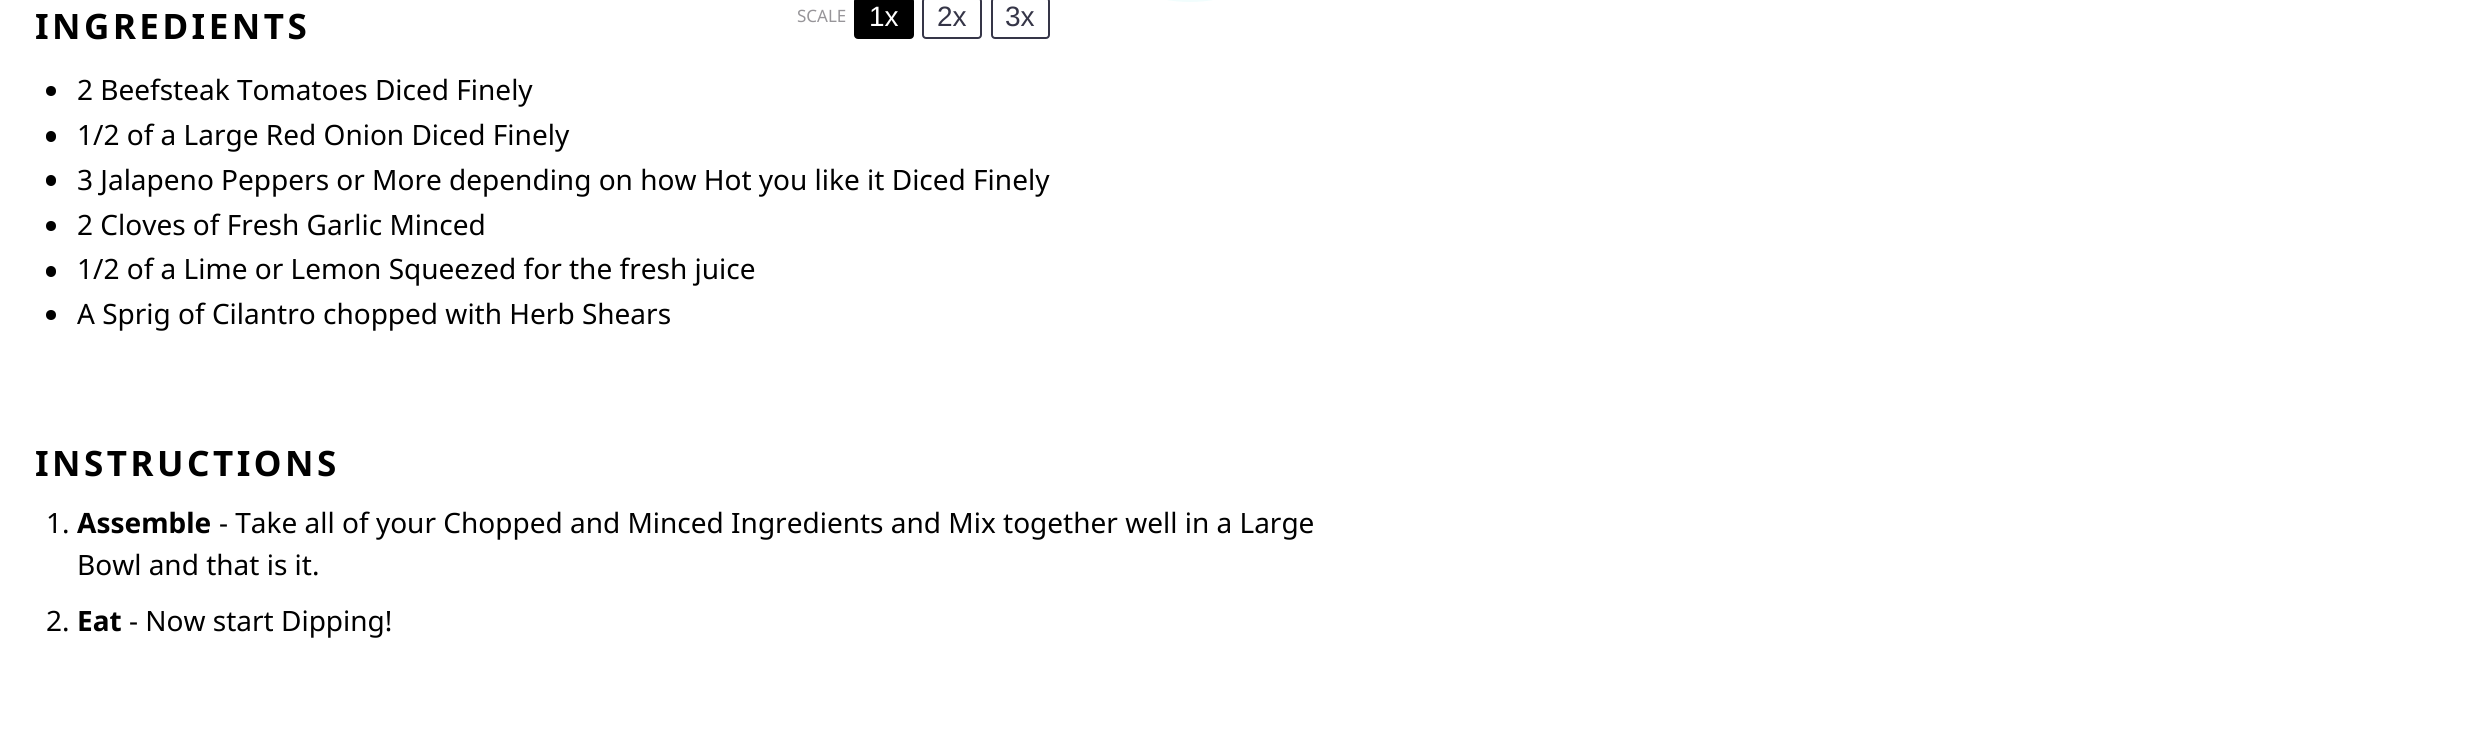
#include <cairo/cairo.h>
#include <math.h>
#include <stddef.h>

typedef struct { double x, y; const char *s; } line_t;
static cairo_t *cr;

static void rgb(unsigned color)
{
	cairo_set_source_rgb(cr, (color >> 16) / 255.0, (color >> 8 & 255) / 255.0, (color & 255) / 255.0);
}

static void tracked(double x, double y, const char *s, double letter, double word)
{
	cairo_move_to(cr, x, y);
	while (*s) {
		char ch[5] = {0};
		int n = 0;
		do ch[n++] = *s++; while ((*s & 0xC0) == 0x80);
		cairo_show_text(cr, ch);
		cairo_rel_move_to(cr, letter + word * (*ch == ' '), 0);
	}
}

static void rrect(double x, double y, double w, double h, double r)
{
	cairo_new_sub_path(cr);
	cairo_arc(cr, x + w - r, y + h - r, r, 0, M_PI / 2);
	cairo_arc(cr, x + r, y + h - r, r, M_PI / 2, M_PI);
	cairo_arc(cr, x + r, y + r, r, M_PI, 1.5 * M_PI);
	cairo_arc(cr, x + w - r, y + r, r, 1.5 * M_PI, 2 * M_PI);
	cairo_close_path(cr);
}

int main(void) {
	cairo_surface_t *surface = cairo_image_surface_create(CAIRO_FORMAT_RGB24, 2487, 748);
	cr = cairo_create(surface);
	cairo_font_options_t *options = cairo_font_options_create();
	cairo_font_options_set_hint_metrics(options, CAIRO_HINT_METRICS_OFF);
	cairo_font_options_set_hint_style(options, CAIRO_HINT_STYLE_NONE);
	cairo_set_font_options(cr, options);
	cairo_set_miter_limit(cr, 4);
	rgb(0xffffff);
	cairo_paint(cr);
	rrect(1054.5, -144.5, 271, 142, 135.5);
	rgb(0xf1fdfd);
	cairo_set_line_width(cr, 9);
	cairo_stroke(cr);
	rgb(0x000000);
	rrect(855, -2, 58, 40, 3);
	cairo_fill_preserve(cr);
	cairo_set_line_width(cr, 2);
	cairo_stroke(cr);
	rrect(923, -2, 58, 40, 3);
	rgb(0x353547);
	cairo_stroke(cr);
	rrect(992, -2, 57, 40, 3);
	cairo_stroke(cr);
	rgb(0x000000);
	cairo_arc(cr, 51, 91, 5, 0, 2 * M_PI);
	cairo_fill(cr);
	rrect(46, 131, 10, 11, 5);
	cairo_fill(cr);
	rrect(46, 175, 10, 11, 5);
	cairo_fill(cr);
	cairo_arc(cr, 51, 226, 5, 0, 2 * M_PI);
	cairo_fill(cr);
	rrect(46, 266, 10, 11, 5);
	cairo_fill(cr);
	cairo_arc(cr, 51, 315, 5, 0, 2 * M_PI);
	cairo_fill(cr);
	cairo_select_font_face(cr, "Noto Sans", CAIRO_FONT_SLANT_NORMAL, CAIRO_FONT_WEIGHT_BOLD);
	cairo_set_font_size(cr, 35);
	tracked(35, 39, "INGREDIENTS", 3.5, 0);
	cairo_select_font_face(cr, "Noto Sans", CAIRO_FONT_SLANT_NORMAL, CAIRO_FONT_WEIGHT_NORMAL);
	cairo_set_font_size(cr, 17);
	rgb(0x979599);
	cairo_move_to(cr, 797, 22);
	cairo_show_text(cr, "SCALE");
	cairo_select_font_face(cr, "Liberation Sans", CAIRO_FONT_SLANT_NORMAL, CAIRO_FONT_WEIGHT_NORMAL);
	cairo_set_font_size(cr, 28);
	rgb(0xffffff);
	cairo_move_to(cr, 869, 26);
	cairo_show_text(cr, "1x");
	rgb(0x353547);
	cairo_move_to(cr, 937, 26);
	cairo_show_text(cr, "2x");
	cairo_move_to(cr, 1005, 26);
	cairo_show_text(cr, "3x");
	cairo_select_font_face(cr, "Noto Sans", CAIRO_FONT_SLANT_NORMAL, CAIRO_FONT_WEIGHT_NORMAL);
	rgb(0x000000);
	{
		static const line_t items[] = {
			{77, 100, "2 Beefsteak Tomatoes Diced Finely"},
			{77, 145, "1/2 of a Large Red Onion Diced Finely"},
			{77, 190, "3 Jalapeno Peppers or More depending on how Hot you like it Diced Finely"},
			{77, 235, "2 Cloves of Fresh Garlic Minced"},
			{77, 279, "1/2 of a Lime or Lemon Squeezed for the fresh juice"},
			{77, 324, "A Sprig of Cilantro chopped with Herb Shears"},
		};
		for (size_t i = 0; i < sizeof items / sizeof *items; i++) {
			cairo_move_to(cr, items[i].x, items[i].y);
			cairo_show_text(cr, items[i].s);
		}
	}
	cairo_select_font_face(cr, "Noto Sans", CAIRO_FONT_SLANT_NORMAL, CAIRO_FONT_WEIGHT_BOLD);
	cairo_set_font_size(cr, 35);
	tracked(35, 476, "INSTRUCTIONS", 3.5, 0);
	cairo_select_font_face(cr, "Noto Sans", CAIRO_FONT_SLANT_NORMAL, CAIRO_FONT_WEIGHT_NORMAL);
	cairo_set_font_size(cr, 28);
	cairo_move_to(cr, 46, 533);
	cairo_show_text(cr, "1.");
	cairo_select_font_face(cr, "Noto Sans", CAIRO_FONT_SLANT_NORMAL, CAIRO_FONT_WEIGHT_BOLD);
	cairo_move_to(cr, 77, 533);
	cairo_show_text(cr, "Assemble");
	cairo_select_font_face(cr, "Noto Sans", CAIRO_FONT_SLANT_NORMAL, CAIRO_FONT_WEIGHT_NORMAL);
	{
		static const line_t items[] = {
			{219, 533, "- Take all of your Chopped and Minced Ingredients and Mix together well in a Large"},
			{77, 575, "Bowl and that is it."},
			{46, 631, "2."},
		};
		for (size_t i = 0; i < sizeof items / sizeof *items; i++) {
			cairo_move_to(cr, items[i].x, items[i].y);
			cairo_show_text(cr, items[i].s);
		}
	}
	cairo_select_font_face(cr, "Noto Sans", CAIRO_FONT_SLANT_NORMAL, CAIRO_FONT_WEIGHT_BOLD);
	cairo_move_to(cr, 77, 631);
	cairo_show_text(cr, "Eat");
	cairo_select_font_face(cr, "Noto Sans", CAIRO_FONT_SLANT_NORMAL, CAIRO_FONT_WEIGHT_NORMAL);
	cairo_move_to(cr, 129, 631);
	cairo_show_text(cr, "- Now start Dipping!");
	cairo_surface_write_to_png(surface, "page.png");
	cairo_font_options_destroy(options);
	cairo_destroy(cr);
	cairo_surface_destroy(surface);
	return 0;
}
